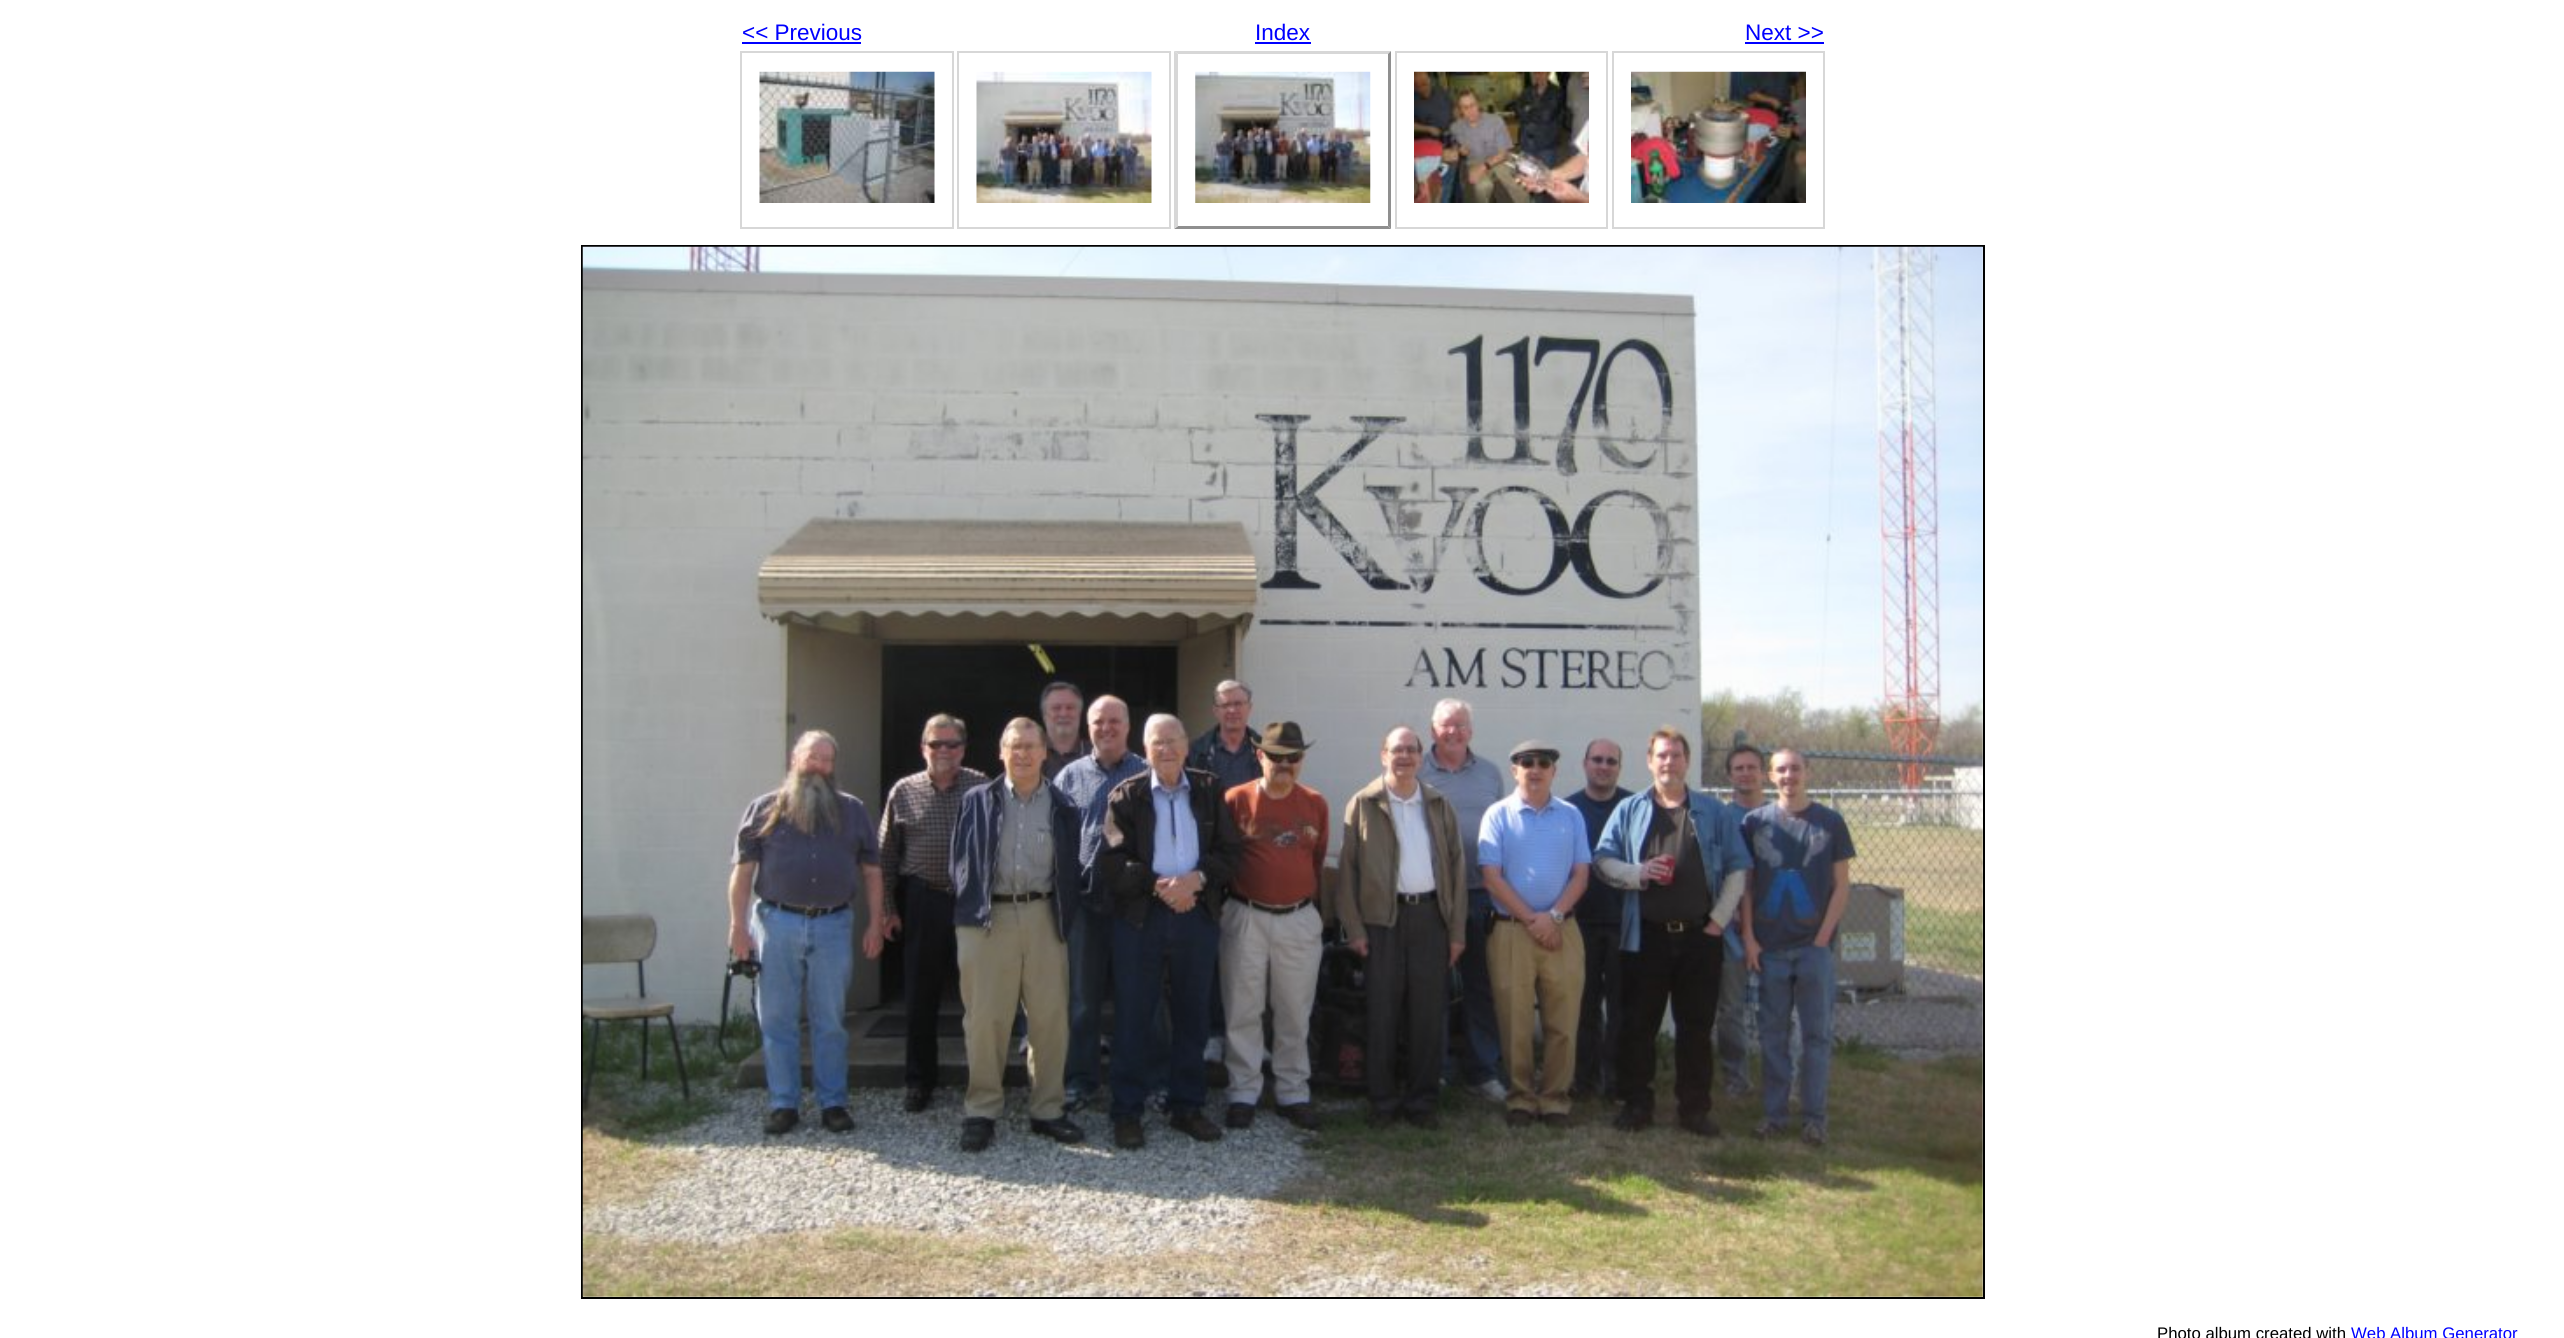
#include <cairo/cairo.h>
#include <math.h>
#include <stddef.h>

typedef struct { double x, y; const char *s; } line_t;
typedef struct { double x, y, w, h; unsigned color; } box_t;
static cairo_t *cr;

static void rgb(unsigned color)
{
	cairo_set_source_rgb(cr, (color >> 16) / 255.0, (color >> 8 & 255) / 255.0, (color & 255) / 255.0);
}

static void image(const char *path, double x, double y, double w, double h)
{
	cairo_surface_t *image = cairo_image_surface_create_from_png(path);
	cairo_save(cr);
	cairo_set_source_surface(cr, image, x, y);
	cairo_rectangle(cr, x, y, w, h);
	cairo_fill(cr);
	cairo_restore(cr);
	cairo_surface_destroy(image);
}

int main(void) {
	cairo_surface_t *surface = cairo_image_surface_create(CAIRO_FORMAT_RGB24, 2564, 1338);
	cr = cairo_create(surface);
	cairo_font_options_t *options = cairo_font_options_create();
	cairo_font_options_set_hint_metrics(options, CAIRO_HINT_METRICS_OFF);
	cairo_font_options_set_hint_style(options, CAIRO_HINT_STYLE_NONE);
	cairo_set_font_options(cr, options);
	cairo_set_miter_limit(cr, 4);
	rgb(0xffffff);
	cairo_paint(cr);
	{
		static const box_t items[] = {
			{742, 42, 119, 2, 0x0000ff},
			{1255, 42, 56, 2, 0x0000ff},
			{1745, 42, 79, 2, 0x0000ff},
		};
		for (size_t i = 0; i < sizeof items / sizeof *items; i++) {
			rgb(items[i].color);
			cairo_rectangle(cr, items[i].x, items[i].y, items[i].w, items[i].h);
			cairo_fill(cr);
		}
	}
	cairo_rectangle(cr, 741, 52, 212, 176);
	rgb(0xd7d7d7);
	cairo_stroke(cr);
	image("img/1.png", 759, 71, 176, 132);
	cairo_rectangle(cr, 958, 52, 212, 176);
	cairo_stroke(cr);
	image("img/2.png", 976, 71, 176, 132);
	cairo_new_path(cr);
	cairo_move_to(cr, 1174, 51);
	cairo_line_to(cr, 1391, 51);
	cairo_line_to(cr, 1388, 54);
	cairo_line_to(cr, 1178, 54);
	cairo_close_path(cr);
	cairo_fill(cr);
	rgb(0x8f8f8f);
	cairo_new_path(cr);
	cairo_move_to(cr, 1391, 51);
	cairo_line_to(cr, 1391, 229);
	cairo_line_to(cr, 1388, 226);
	cairo_line_to(cr, 1388, 54);
	cairo_close_path(cr);
	cairo_fill(cr);
	cairo_new_path(cr);
	cairo_move_to(cr, 1391, 229);
	cairo_line_to(cr, 1174, 229);
	cairo_line_to(cr, 1178, 226);
	cairo_line_to(cr, 1388, 226);
	cairo_close_path(cr);
	cairo_fill(cr);
	rgb(0xd7d7d7);
	cairo_new_path(cr);
	cairo_move_to(cr, 1174, 229);
	cairo_line_to(cr, 1174, 51);
	cairo_line_to(cr, 1178, 54);
	cairo_line_to(cr, 1178, 226);
	cairo_close_path(cr);
	cairo_fill(cr);
	image("img/3.png", 1195, 71, 176, 132);
	cairo_rectangle(cr, 1396, 52, 211, 176);
	cairo_stroke(cr);
	image("img/4.png", 1414, 71, 175, 132);
	cairo_rectangle(cr, 1613, 52, 211, 176);
	cairo_stroke(cr);
	image("img/5.png", 1631, 71, 175, 132);
	cairo_rectangle(cr, 582, 246, 1402, 1052);
	rgb(0x000000);
	cairo_stroke(cr);
	image("img/6.png", 582, 246, 1401, 1051);
	cairo_select_font_face(cr, "Liberation Sans", CAIRO_FONT_SLANT_NORMAL, CAIRO_FONT_WEIGHT_NORMAL);
	cairo_set_font_size(cr, 22.5);
	rgb(0x0000ff);
	{
		static const line_t items[] = {
			{742, 40, "<< Previous"},
			{1255, 40, "Index"},
			{1745, 40, "Next >>"},
		};
		for (size_t i = 0; i < sizeof items / sizeof *items; i++) {
			cairo_move_to(cr, items[i].x, items[i].y);
			cairo_show_text(cr, items[i].s);
		}
	}
	cairo_set_font_size(cr, 16.75);
	rgb(0x000000);
	cairo_move_to(cr, 2157, 1339);
	cairo_show_text(cr, "Photo album created with");
	rgb(0x0000ff);
	cairo_move_to(cr, 2351, 1339);
	cairo_show_text(cr, "Web Album Generator");
	cairo_surface_write_to_png(surface, "page.png");
	cairo_font_options_destroy(options);
	cairo_destroy(cr);
	cairo_surface_destroy(surface);
	return 0;
}
